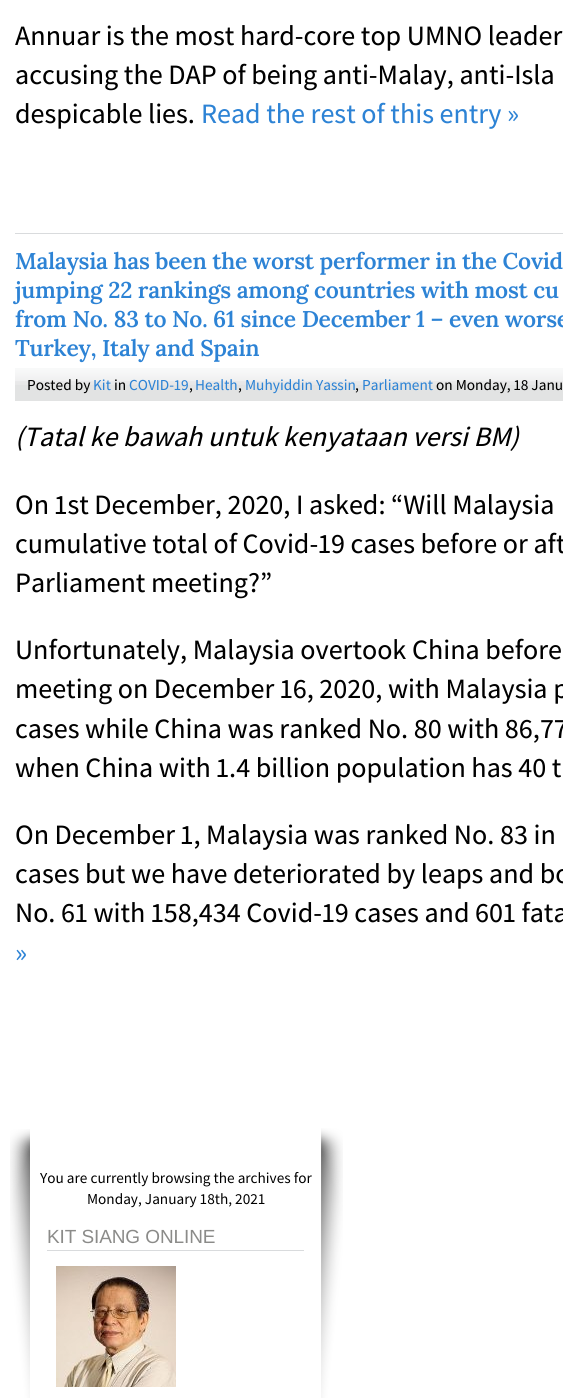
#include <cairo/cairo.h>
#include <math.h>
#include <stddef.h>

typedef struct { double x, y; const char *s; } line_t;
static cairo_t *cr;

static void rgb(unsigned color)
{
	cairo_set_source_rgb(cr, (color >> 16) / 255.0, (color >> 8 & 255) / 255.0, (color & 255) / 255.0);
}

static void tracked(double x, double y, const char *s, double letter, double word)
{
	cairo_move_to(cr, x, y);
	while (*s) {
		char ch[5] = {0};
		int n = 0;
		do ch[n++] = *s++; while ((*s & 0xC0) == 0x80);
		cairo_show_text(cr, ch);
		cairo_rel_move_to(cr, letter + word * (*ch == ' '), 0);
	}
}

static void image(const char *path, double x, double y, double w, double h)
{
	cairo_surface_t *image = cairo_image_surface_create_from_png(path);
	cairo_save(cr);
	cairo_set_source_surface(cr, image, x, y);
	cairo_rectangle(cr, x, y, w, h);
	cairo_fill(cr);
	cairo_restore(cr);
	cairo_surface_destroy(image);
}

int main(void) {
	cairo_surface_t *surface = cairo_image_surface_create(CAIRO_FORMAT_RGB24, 563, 1398);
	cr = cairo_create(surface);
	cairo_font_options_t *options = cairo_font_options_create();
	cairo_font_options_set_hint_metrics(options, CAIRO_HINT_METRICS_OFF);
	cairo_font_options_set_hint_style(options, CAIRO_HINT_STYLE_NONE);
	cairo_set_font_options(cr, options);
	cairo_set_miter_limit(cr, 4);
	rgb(0xffffff);
	cairo_paint(cr);
	rgb(0xd9dbdd);
	cairo_rectangle(cr, 15, 233, 548, 1);
	cairo_fill(cr);
	rgb(0xe2e3e3);
	cairo_rectangle(cr, 15, 385, 548, 16);
	cairo_fill(cr);
	image("img/1.png", 15, 368, 548, 17);
	image("img/2.png", 10, 1129, 20, 269);
	image("img/3.png", 321, 1128, 22, 270);
	rgb(0xd9dbdd);
	cairo_rectangle(cr, 47, 1250, 257, 1);
	cairo_fill(cr);
	image("img/4.png", 56, 1266, 120, 121);
	cairo_select_font_face(cr, "Assistant Medium", CAIRO_FONT_SLANT_NORMAL, CAIRO_FONT_WEIGHT_NORMAL);
	cairo_set_font_size(cr, 28);
	rgb(0x000000);
	{
		static const line_t items[] = {
			{15, 45, "Annuar is the most hard-core top UMNO leader"},
			{15, 84, "accusing the DAP of being anti-Malay, anti-Isla"},
			{15, 123, "despicable lies."},
		};
		for (size_t i = 0; i < sizeof items / sizeof *items; i++) {
			cairo_move_to(cr, items[i].x, items[i].y);
			cairo_show_text(cr, items[i].s);
		}
	}
	rgb(0x2d83d5);
	cairo_move_to(cr, 201, 123);
	cairo_show_text(cr, "Read the rest of this entry »");
	cairo_select_font_face(cr, "Lora SemiBold", CAIRO_FONT_SLANT_NORMAL, CAIRO_FONT_WEIGHT_NORMAL);
	cairo_set_font_size(cr, 22.8);
	{
		static const line_t items[] = {
			{15, 269, "Malaysia has been the worst performer in the Covid"},
			{15, 298, "jumping 22 rankings among countries with most cu"},
			{15, 327, "from No. 83 to No. 61 since December 1 – even worse"},
			{15, 356, "Turkey, Italy and Spain"},
		};
		for (size_t i = 0; i < sizeof items / sizeof *items; i++) {
			tracked(items[i].x, items[i].y, items[i].s, -0.23, 0);
		}
	}
	cairo_select_font_face(cr, "Assistant Medium", CAIRO_FONT_SLANT_NORMAL, CAIRO_FONT_WEIGHT_NORMAL);
	cairo_set_font_size(cr, 15.25);
	rgb(0x000000);
	cairo_move_to(cr, 27, 390);
	cairo_show_text(cr, "Posted by");
	rgb(0x2d83d5);
	cairo_move_to(cr, 93, 390);
	cairo_show_text(cr, "Kit");
	rgb(0x000000);
	cairo_move_to(cr, 114, 390);
	cairo_show_text(cr, "in");
	rgb(0x2d83d5);
	cairo_move_to(cr, 129, 390);
	cairo_show_text(cr, "COVID-19");
	rgb(0x000000);
	cairo_move_to(cr, 189, 390);
	cairo_show_text(cr, ",");
	rgb(0x2d83d5);
	cairo_move_to(cr, 195, 390);
	cairo_show_text(cr, "Health");
	rgb(0x000000);
	cairo_move_to(cr, 238, 390);
	cairo_show_text(cr, ",");
	rgb(0x2d83d5);
	cairo_move_to(cr, 245, 390);
	cairo_show_text(cr, "Muhyiddin Yassin");
	rgb(0x000000);
	cairo_move_to(cr, 355, 390);
	cairo_show_text(cr, ",");
	rgb(0x2d83d5);
	cairo_move_to(cr, 362, 390);
	cairo_show_text(cr, "Parliament");
	rgb(0x000000);
	cairo_move_to(cr, 436, 390);
	cairo_show_text(cr, "on Monday, 18 Janu");
	cairo_select_font_face(cr, "Assistant Medium", CAIRO_FONT_SLANT_ITALIC, CAIRO_FONT_WEIGHT_NORMAL);
	cairo_set_font_size(cr, 28);
	cairo_move_to(cr, 15, 446);
	cairo_show_text(cr, "(Tatal ke bawah untuk kenyataan versi BM)");
	cairo_select_font_face(cr, "Assistant Medium", CAIRO_FONT_SLANT_NORMAL, CAIRO_FONT_WEIGHT_NORMAL);
	{
		static const line_t items[] = {
			{15, 514, "On 1st December, 2020, I asked: “Will Malaysia"},
			{15, 553, "cumulative total of Covid-19 cases before or aft"},
			{15, 592, "Parliament meeting?”"},
			{15, 659, "Unfortunately, Malaysia overtook China before"},
			{15, 698, "meeting on December 16, 2020, with Malaysia p"},
			{15, 738, "cases while China was ranked No. 80 with 86,77"},
			{15, 777, "when China with 1.4 billion population has 40 t"},
			{15, 844, "On December 1, Malaysia was ranked No. 83 in"},
			{15, 883, "cases but we have deteriorated by leaps and bo"},
			{15, 922, "No. 61 with 158,434 Covid-19 cases and 601 fata"},
		};
		for (size_t i = 0; i < sizeof items / sizeof *items; i++) {
			cairo_move_to(cr, items[i].x, items[i].y);
			cairo_show_text(cr, items[i].s);
		}
	}
	rgb(0x2d83d5);
	cairo_move_to(cr, 15, 962);
	cairo_show_text(cr, "»");
	cairo_select_font_face(cr, "Source Sans Pro", CAIRO_FONT_SLANT_NORMAL, CAIRO_FONT_WEIGHT_NORMAL);
	cairo_set_font_size(cr, 15.25);
	rgb(0x000000);
	cairo_move_to(cr, 40, 1183);
	cairo_show_text(cr, "You are currently browsing the archives for");
	cairo_move_to(cr, 87, 1204);
	cairo_show_text(cr, "Monday, January 18th, 2021");
	cairo_select_font_face(cr, "Liberation Sans", CAIRO_FONT_SLANT_NORMAL, CAIRO_FONT_WEIGHT_NORMAL);
	cairo_set_font_size(cr, 19);
	rgb(0x8b8b89);
	tracked(47, 1243, "KIT SIANG ONLINE", -0.1, 0);
	cairo_surface_write_to_png(surface, "page.png");
	cairo_font_options_destroy(options);
	cairo_destroy(cr);
	cairo_surface_destroy(surface);
	return 0;
}
